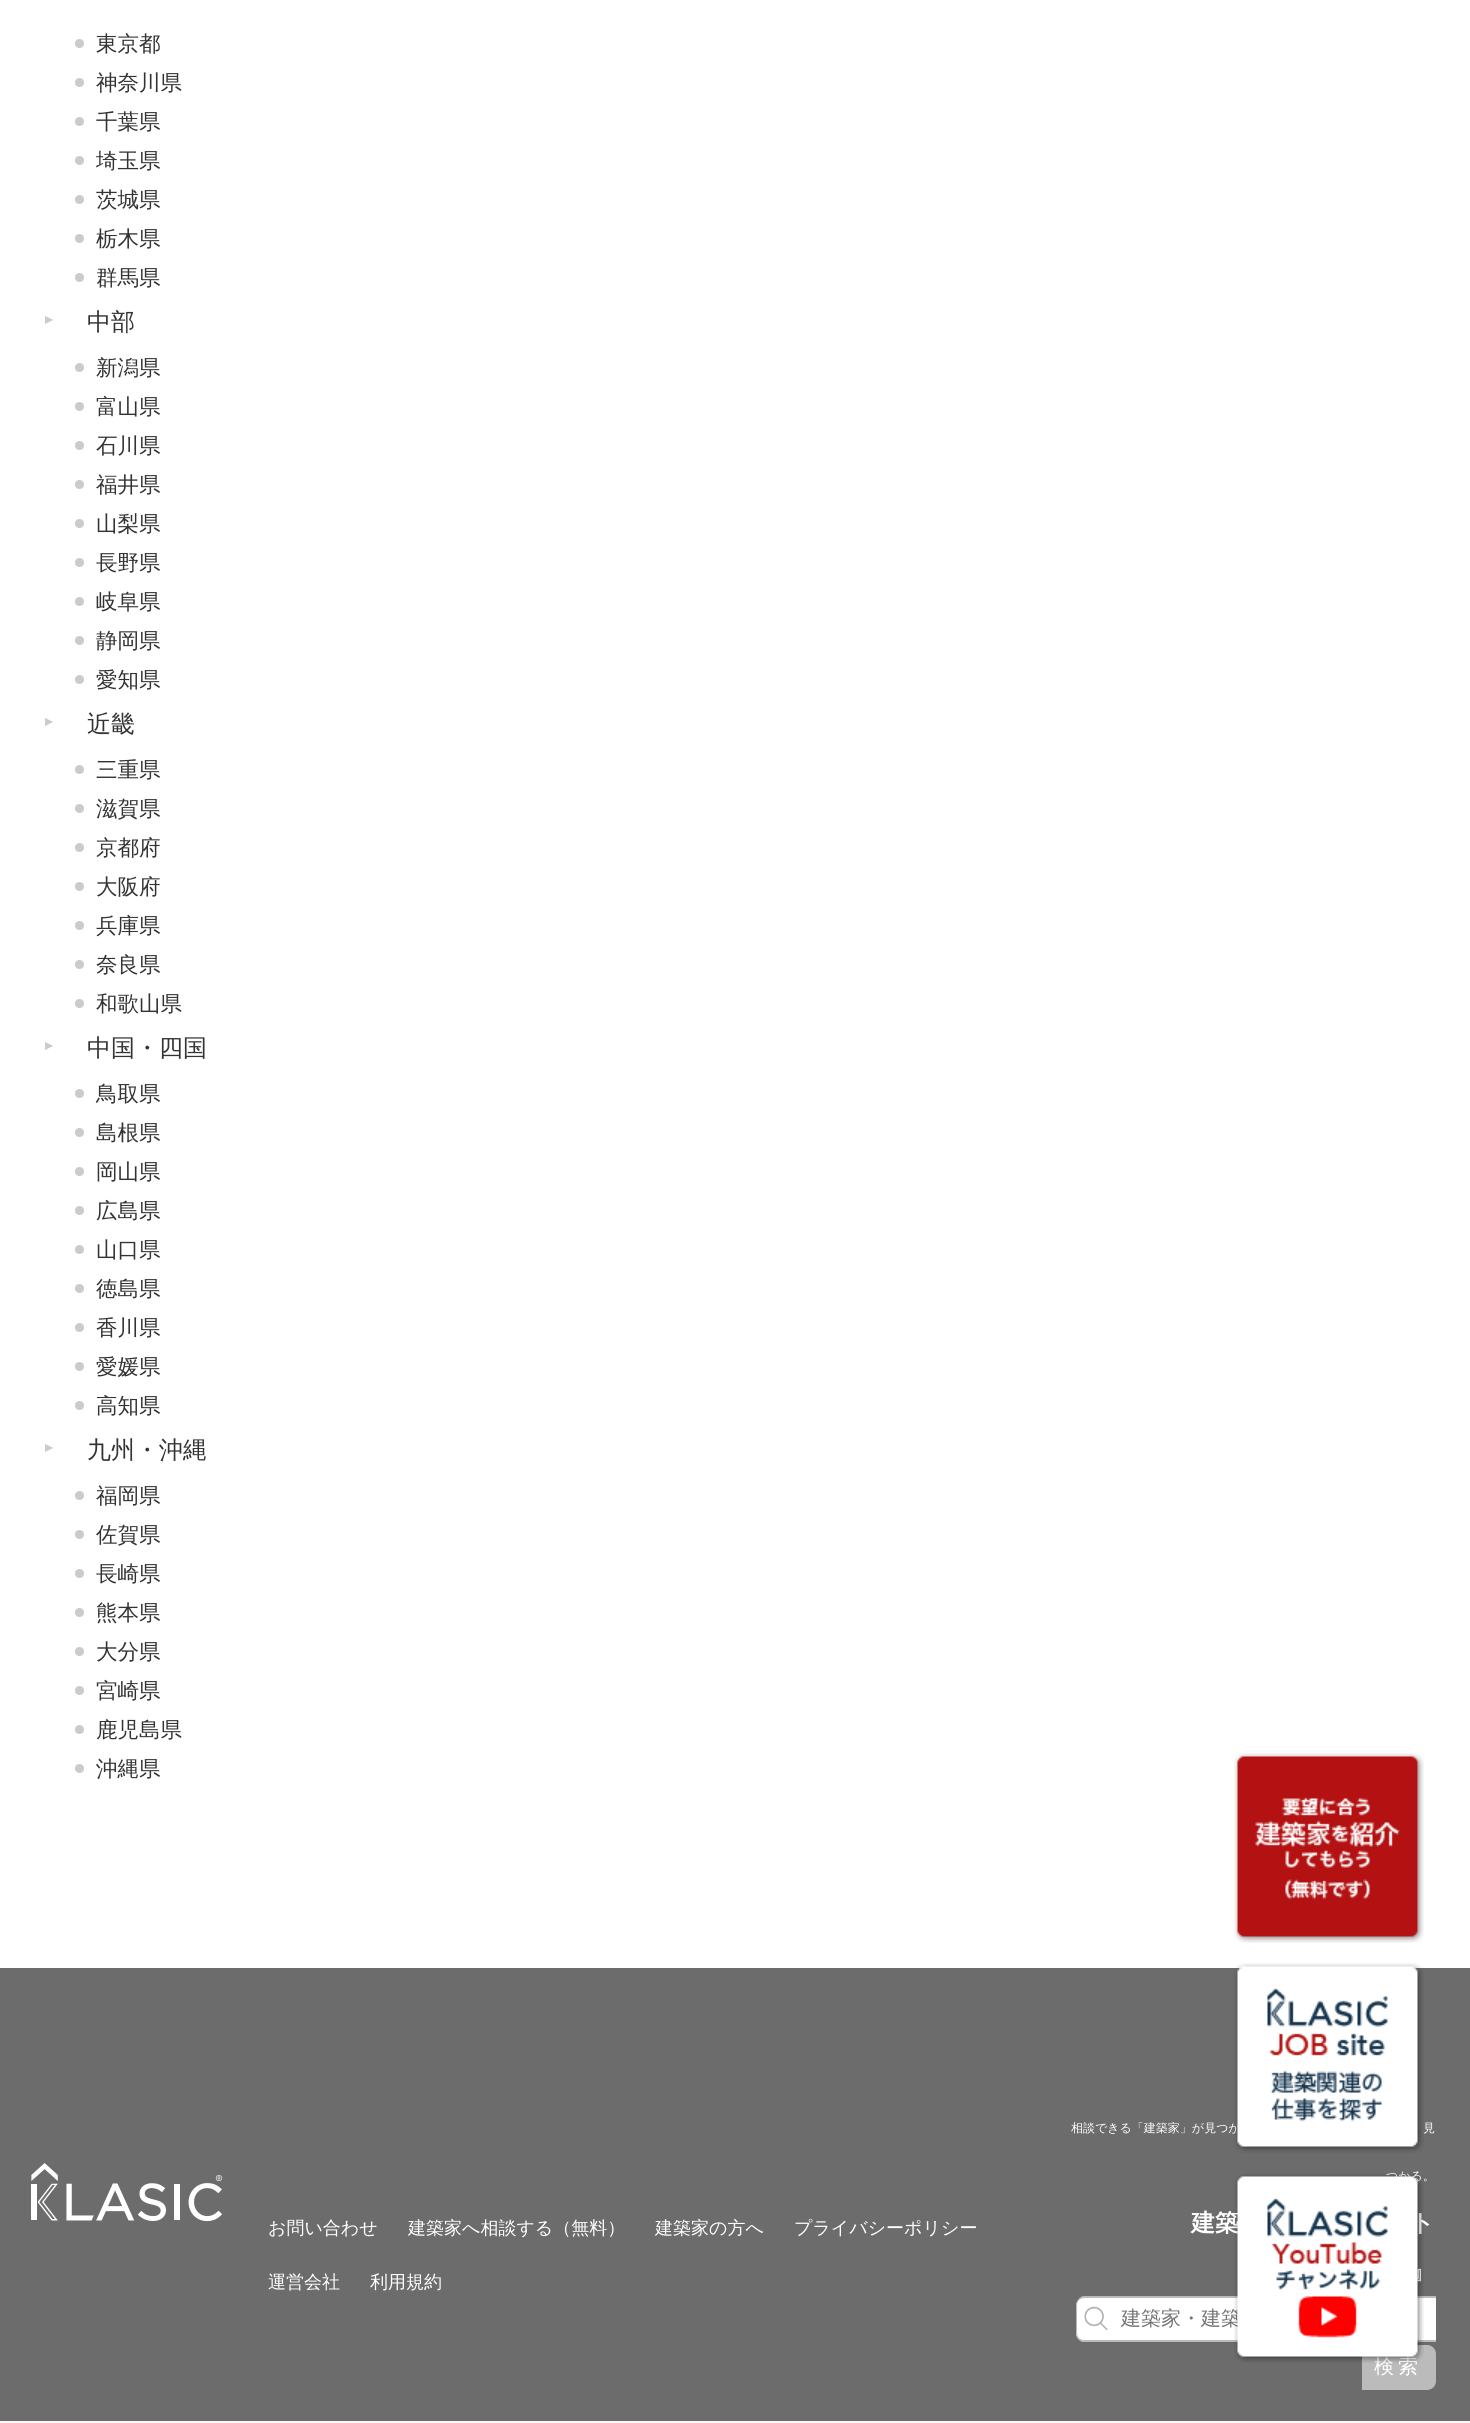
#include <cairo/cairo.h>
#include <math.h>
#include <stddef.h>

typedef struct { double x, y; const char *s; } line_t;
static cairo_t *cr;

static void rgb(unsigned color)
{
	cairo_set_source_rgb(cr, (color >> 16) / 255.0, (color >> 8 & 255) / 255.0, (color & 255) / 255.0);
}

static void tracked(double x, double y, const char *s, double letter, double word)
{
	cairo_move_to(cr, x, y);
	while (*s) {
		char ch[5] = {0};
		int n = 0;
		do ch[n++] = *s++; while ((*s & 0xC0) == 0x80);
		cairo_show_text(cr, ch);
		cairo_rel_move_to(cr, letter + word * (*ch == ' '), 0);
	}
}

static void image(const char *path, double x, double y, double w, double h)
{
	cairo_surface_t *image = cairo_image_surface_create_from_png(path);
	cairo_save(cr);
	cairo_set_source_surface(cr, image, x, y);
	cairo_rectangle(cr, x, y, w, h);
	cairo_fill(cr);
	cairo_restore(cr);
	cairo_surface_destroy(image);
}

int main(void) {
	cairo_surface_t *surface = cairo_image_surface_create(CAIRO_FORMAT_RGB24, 1470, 2423);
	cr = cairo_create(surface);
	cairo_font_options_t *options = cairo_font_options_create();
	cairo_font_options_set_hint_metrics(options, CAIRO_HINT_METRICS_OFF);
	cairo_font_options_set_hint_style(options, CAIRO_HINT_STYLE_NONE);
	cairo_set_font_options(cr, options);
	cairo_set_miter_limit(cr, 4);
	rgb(0xffffff);
	cairo_paint(cr);
	rgb(0xcbcbcb);
	cairo_arc(cr, 79.5, 43.5, 4.5, 0, 2 * M_PI);
	cairo_fill(cr);
	cairo_arc(cr, 79.5, 82.5, 4.5, 0, 2 * M_PI);
	cairo_fill(cr);
	cairo_arc(cr, 79.5, 121.5, 4.5, 0, 2 * M_PI);
	cairo_fill(cr);
	cairo_arc(cr, 79.5, 160.5, 4.5, 0, 2 * M_PI);
	cairo_fill(cr);
	cairo_arc(cr, 79.5, 199.5, 4.5, 0, 2 * M_PI);
	cairo_fill(cr);
	cairo_arc(cr, 79.5, 238.5, 4.5, 0, 2 * M_PI);
	cairo_fill(cr);
	cairo_arc(cr, 79.5, 277.5, 4.5, 0, 2 * M_PI);
	cairo_fill(cr);
	cairo_arc(cr, 79.5, 367.5, 4.5, 0, 2 * M_PI);
	cairo_fill(cr);
	cairo_arc(cr, 79.5, 406.5, 4.5, 0, 2 * M_PI);
	cairo_fill(cr);
	cairo_arc(cr, 79.5, 445.5, 4.5, 0, 2 * M_PI);
	cairo_fill(cr);
	cairo_arc(cr, 79.5, 484.5, 4.5, 0, 2 * M_PI);
	cairo_fill(cr);
	cairo_arc(cr, 79.5, 523.5, 4.5, 0, 2 * M_PI);
	cairo_fill(cr);
	cairo_arc(cr, 79.5, 562.5, 4.5, 0, 2 * M_PI);
	cairo_fill(cr);
	cairo_arc(cr, 79.5, 601.5, 4.5, 0, 2 * M_PI);
	cairo_fill(cr);
	cairo_arc(cr, 79.5, 640.5, 4.5, 0, 2 * M_PI);
	cairo_fill(cr);
	cairo_arc(cr, 79.5, 679.5, 4.5, 0, 2 * M_PI);
	cairo_fill(cr);
	cairo_arc(cr, 79.5, 769.5, 4.5, 0, 2 * M_PI);
	cairo_fill(cr);
	cairo_arc(cr, 79.5, 808.5, 4.5, 0, 2 * M_PI);
	cairo_fill(cr);
	cairo_arc(cr, 79.5, 847.5, 4.5, 0, 2 * M_PI);
	cairo_fill(cr);
	cairo_arc(cr, 79.5, 886.5, 4.5, 0, 2 * M_PI);
	cairo_fill(cr);
	cairo_arc(cr, 79.5, 925.5, 4.5, 0, 2 * M_PI);
	cairo_fill(cr);
	cairo_arc(cr, 79.5, 964.5, 4.5, 0, 2 * M_PI);
	cairo_fill(cr);
	cairo_arc(cr, 79.5, 1003.5, 4.5, 0, 2 * M_PI);
	cairo_fill(cr);
	cairo_arc(cr, 79.5, 1093.5, 4.5, 0, 2 * M_PI);
	cairo_fill(cr);
	cairo_arc(cr, 79.5, 1132.5, 4.5, 0, 2 * M_PI);
	cairo_fill(cr);
	cairo_arc(cr, 79.5, 1171.5, 4.5, 0, 2 * M_PI);
	cairo_fill(cr);
	cairo_arc(cr, 79.5, 1210.5, 4.5, 0, 2 * M_PI);
	cairo_fill(cr);
	cairo_arc(cr, 79.5, 1249.5, 4.5, 0, 2 * M_PI);
	cairo_fill(cr);
	cairo_arc(cr, 79.5, 1288.5, 4.5, 0, 2 * M_PI);
	cairo_fill(cr);
	cairo_arc(cr, 79.5, 1327.5, 4.5, 0, 2 * M_PI);
	cairo_fill(cr);
	cairo_arc(cr, 79.5, 1366.5, 4.5, 0, 2 * M_PI);
	cairo_fill(cr);
	cairo_arc(cr, 79.5, 1405.5, 4.5, 0, 2 * M_PI);
	cairo_fill(cr);
	cairo_arc(cr, 79.5, 1495.5, 4.5, 0, 2 * M_PI);
	cairo_fill(cr);
	cairo_arc(cr, 79.5, 1534.5, 4.5, 0, 2 * M_PI);
	cairo_fill(cr);
	cairo_arc(cr, 79.5, 1573.5, 4.5, 0, 2 * M_PI);
	cairo_fill(cr);
	cairo_arc(cr, 79.5, 1612.5, 4.5, 0, 2 * M_PI);
	cairo_fill(cr);
	cairo_arc(cr, 79.5, 1651.5, 4.5, 0, 2 * M_PI);
	cairo_fill(cr);
	cairo_arc(cr, 79.5, 1690.5, 4.5, 0, 2 * M_PI);
	cairo_fill(cr);
	cairo_arc(cr, 79.5, 1729.5, 4.5, 0, 2 * M_PI);
	cairo_fill(cr);
	cairo_arc(cr, 79.5, 1768.5, 4.5, 0, 2 * M_PI);
	cairo_fill(cr);
	image("img/1.png", 1234, 1753, 190, 190);
	rgb(0x6c6c6c);
	cairo_rectangle(cr, 0, 1968, 1470, 453);
	cairo_fill(cr);
	image("img/3.png", 31, 2163, 191, 59);
	rgb(0xffffff);
	cairo_new_path(cr);
	cairo_move_to(cr, 1085, 2297);
	cairo_line_to(cr, 1436, 2297);
	cairo_line_to(cr, 1436, 2342);
	cairo_line_to(cr, 1085, 2342);
	cairo_curve_to(cr, 1080, 2342, 1076, 2338, 1076, 2333);
	cairo_line_to(cr, 1076, 2306);
	cairo_curve_to(cr, 1076, 2301, 1080, 2297, 1085, 2297);
	cairo_close_path(cr);
	cairo_fill(cr);
	image("img/4.png", 1084, 2306, 24, 25);
	rgb(0xbbbbbb);
	cairo_set_fill_rule(cr, CAIRO_FILL_RULE_EVEN_ODD);
	cairo_new_path(cr);
	cairo_move_to(cr, 1084, 2296);
	cairo_line_to(cr, 1436, 2296);
	cairo_line_to(cr, 1436, 2342);
	cairo_line_to(cr, 1084, 2342);
	cairo_curve_to(cr, 1080, 2342, 1076, 2337, 1076, 2332);
	cairo_line_to(cr, 1076, 2306);
	cairo_curve_to(cr, 1076, 2301, 1080, 2296, 1084, 2296);
	cairo_close_path(cr);
	cairo_move_to(cr, 1084, 2298);
	cairo_line_to(cr, 1436, 2298);
	cairo_line_to(cr, 1436, 2340);
	cairo_line_to(cr, 1084, 2340);
	cairo_curve_to(cr, 1080, 2340, 1077, 2337, 1077, 2332);
	cairo_line_to(cr, 1077, 2306);
	cairo_curve_to(cr, 1077, 2301, 1080, 2298, 1084, 2298);
	cairo_close_path(cr);
	cairo_fill(cr);
	cairo_new_path(cr);
	cairo_move_to(cr, 1362, 2345);
	cairo_line_to(cr, 1427, 2345);
	cairo_curve_to(cr, 1432, 2345, 1436, 2349, 1436, 2354);
	cairo_line_to(cr, 1436, 2381);
	cairo_curve_to(cr, 1436, 2386, 1432, 2390, 1427, 2390);
	cairo_line_to(cr, 1362, 2390);
	cairo_close_path(cr);
	cairo_fill(cr);
	rgb(0xf8f7f4);
	cairo_rectangle(cr, 0, 2421, 1470, 2);
	cairo_fill(cr);
	cairo_select_font_face(cr, "WenQuanYi Zen Hei Medium", CAIRO_FONT_SLANT_NORMAL, CAIRO_FONT_WEIGHT_NORMAL);
	cairo_set_font_size(cr, 21.5);
	rgb(0x333333);
	{
		static const line_t items[] = {
			{96, 51, "東京都"},
			{96, 90, "神奈川県"},
			{96, 129, "千葉県"},
			{96, 168, "埼玉県"},
			{96, 207, "茨城県"},
			{96, 246, "栃木県"},
			{96, 285, "群馬県"},
		};
		for (size_t i = 0; i < sizeof items / sizeof *items; i++) {
			cairo_move_to(cr, items[i].x, items[i].y);
			cairo_show_text(cr, items[i].s);
		}
	}
	cairo_select_font_face(cr, "Liberation Sans", CAIRO_FONT_SLANT_NORMAL, CAIRO_FONT_WEIGHT_NORMAL);
	cairo_set_font_size(cr, 14);
	rgb(0xcbcbcb);
	cairo_save(cr);
	cairo_translate(cr, 45, 313);
	cairo_rotate(cr, 90 * M_PI / 180);
	cairo_move_to(cr, 0, 0);
	cairo_show_text(cr, "▲");
	cairo_restore(cr);
	cairo_select_font_face(cr, "WenQuanYi Zen Hei Medium", CAIRO_FONT_SLANT_NORMAL, CAIRO_FONT_WEIGHT_NORMAL);
	cairo_set_font_size(cr, 24);
	rgb(0x333333);
	cairo_move_to(cr, 87, 330);
	cairo_show_text(cr, "中部");
	cairo_set_font_size(cr, 21.5);
	{
		static const line_t items[] = {
			{96, 375, "新潟県"},
			{96, 414, "富山県"},
			{96, 453, "石川県"},
			{96, 492, "福井県"},
			{96, 531, "山梨県"},
			{96, 570, "長野県"},
			{96, 609, "岐阜県"},
			{96, 648, "静岡県"},
			{96, 687, "愛知県"},
		};
		for (size_t i = 0; i < sizeof items / sizeof *items; i++) {
			cairo_move_to(cr, items[i].x, items[i].y);
			cairo_show_text(cr, items[i].s);
		}
	}
	cairo_select_font_face(cr, "Liberation Sans", CAIRO_FONT_SLANT_NORMAL, CAIRO_FONT_WEIGHT_NORMAL);
	cairo_set_font_size(cr, 14);
	rgb(0xcbcbcb);
	cairo_save(cr);
	cairo_translate(cr, 45, 715);
	cairo_rotate(cr, 90 * M_PI / 180);
	cairo_move_to(cr, 0, 0);
	cairo_show_text(cr, "▲");
	cairo_restore(cr);
	cairo_select_font_face(cr, "WenQuanYi Zen Hei Medium", CAIRO_FONT_SLANT_NORMAL, CAIRO_FONT_WEIGHT_NORMAL);
	cairo_set_font_size(cr, 24);
	rgb(0x333333);
	cairo_move_to(cr, 87, 732);
	cairo_show_text(cr, "近畿");
	cairo_set_font_size(cr, 21.5);
	{
		static const line_t items[] = {
			{96, 777, "三重県"},
			{96, 816, "滋賀県"},
			{96, 855, "京都府"},
			{96, 894, "大阪府"},
			{96, 933, "兵庫県"},
			{96, 972, "奈良県"},
			{96, 1011, "和歌山県"},
		};
		for (size_t i = 0; i < sizeof items / sizeof *items; i++) {
			cairo_move_to(cr, items[i].x, items[i].y);
			cairo_show_text(cr, items[i].s);
		}
	}
	cairo_select_font_face(cr, "Liberation Sans", CAIRO_FONT_SLANT_NORMAL, CAIRO_FONT_WEIGHT_NORMAL);
	cairo_set_font_size(cr, 14);
	rgb(0xcbcbcb);
	cairo_save(cr);
	cairo_translate(cr, 45, 1039);
	cairo_rotate(cr, 90 * M_PI / 180);
	cairo_move_to(cr, 0, 0);
	cairo_show_text(cr, "▲");
	cairo_restore(cr);
	cairo_select_font_face(cr, "WenQuanYi Zen Hei Medium", CAIRO_FONT_SLANT_NORMAL, CAIRO_FONT_WEIGHT_NORMAL);
	cairo_set_font_size(cr, 24);
	rgb(0x333333);
	cairo_move_to(cr, 87, 1056);
	cairo_show_text(cr, "中国・四国");
	cairo_set_font_size(cr, 21.5);
	{
		static const line_t items[] = {
			{96, 1101, "鳥取県"},
			{96, 1140, "島根県"},
			{96, 1179, "岡山県"},
			{96, 1218, "広島県"},
			{96, 1257, "山口県"},
			{96, 1296, "徳島県"},
			{96, 1335, "香川県"},
			{96, 1374, "愛媛県"},
			{96, 1413, "高知県"},
		};
		for (size_t i = 0; i < sizeof items / sizeof *items; i++) {
			cairo_move_to(cr, items[i].x, items[i].y);
			cairo_show_text(cr, items[i].s);
		}
	}
	cairo_select_font_face(cr, "Liberation Sans", CAIRO_FONT_SLANT_NORMAL, CAIRO_FONT_WEIGHT_NORMAL);
	cairo_set_font_size(cr, 14);
	rgb(0xcbcbcb);
	cairo_save(cr);
	cairo_translate(cr, 45, 1441);
	cairo_rotate(cr, 90 * M_PI / 180);
	cairo_move_to(cr, 0, 0);
	cairo_show_text(cr, "▲");
	cairo_restore(cr);
	cairo_select_font_face(cr, "WenQuanYi Zen Hei Medium", CAIRO_FONT_SLANT_NORMAL, CAIRO_FONT_WEIGHT_NORMAL);
	cairo_set_font_size(cr, 24);
	rgb(0x333333);
	cairo_move_to(cr, 87, 1458);
	cairo_show_text(cr, "九州・沖縄");
	cairo_set_font_size(cr, 21.5);
	{
		static const line_t items[] = {
			{96, 1503, "福岡県"},
			{96, 1542, "佐賀県"},
			{96, 1581, "長崎県"},
			{96, 1620, "熊本県"},
			{96, 1659, "大分県"},
			{96, 1698, "宮崎県"},
			{96, 1737, "鹿児島県"},
			{96, 1776, "沖縄県"},
		};
		for (size_t i = 0; i < sizeof items / sizeof *items; i++) {
			cairo_move_to(cr, items[i].x, items[i].y);
			cairo_show_text(cr, items[i].s);
		}
	}
	cairo_set_font_size(cr, 12);
	rgb(0xffffff);
	cairo_move_to(cr, 1071, 2132);
	cairo_show_text(cr, "相談できる「建築家」が見つか");
	cairo_move_to(cr, 1423, 2132);
	cairo_show_text(cr, "見");
	image("img/2.png", 1234, 1963, 190, 190);
	cairo_move_to(cr, 1386, 2180);
	cairo_show_text(cr, "つかる。");
	cairo_select_font_face(cr, "WenQuanYi Zen Hei", CAIRO_FONT_SLANT_NORMAL, CAIRO_FONT_WEIGHT_BOLD);
	cairo_set_font_size(cr, 24);
	{
		static const line_t items[] = {
			{1191, 2231, "建築"},
			{1410, 2231, "ト"},
			{1411, 2279, "』"},
		};
		for (size_t i = 0; i < sizeof items / sizeof *items; i++) {
			cairo_move_to(cr, items[i].x, items[i].y);
			cairo_show_text(cr, items[i].s);
		}
	}
	cairo_select_font_face(cr, "WenQuanYi Zen Hei Medium", CAIRO_FONT_SLANT_NORMAL, CAIRO_FONT_WEIGHT_NORMAL);
	cairo_set_font_size(cr, 20);
	rgb(0x757575);
	cairo_move_to(cr, 1121, 2325);
	cairo_show_text(cr, "建築家・建築");
	rgb(0xffffff);
	tracked(1374, 2373, "検索", 4, 0);
	cairo_set_font_size(cr, 18);
	{
		static const line_t items[] = {
			{268, 2234, "お問い合わせ"},
			{408, 2234, "建築家へ相談する（無料）"},
			{655, 2234, "建築家の方へ"},
			{794, 2234, "プライバシーポリシー"},
			{268, 2288, "運営会社"},
			{370, 2288, "利用規約"},
		};
		for (size_t i = 0; i < sizeof items / sizeof *items; i++) {
			cairo_move_to(cr, items[i].x, items[i].y);
			cairo_show_text(cr, items[i].s);
		}
	}
	image("img/5.png", 1234, 2173, 190, 190);
	cairo_surface_write_to_png(surface, "page.png");
	cairo_font_options_destroy(options);
	cairo_destroy(cr);
	cairo_surface_destroy(surface);
	return 0;
}
